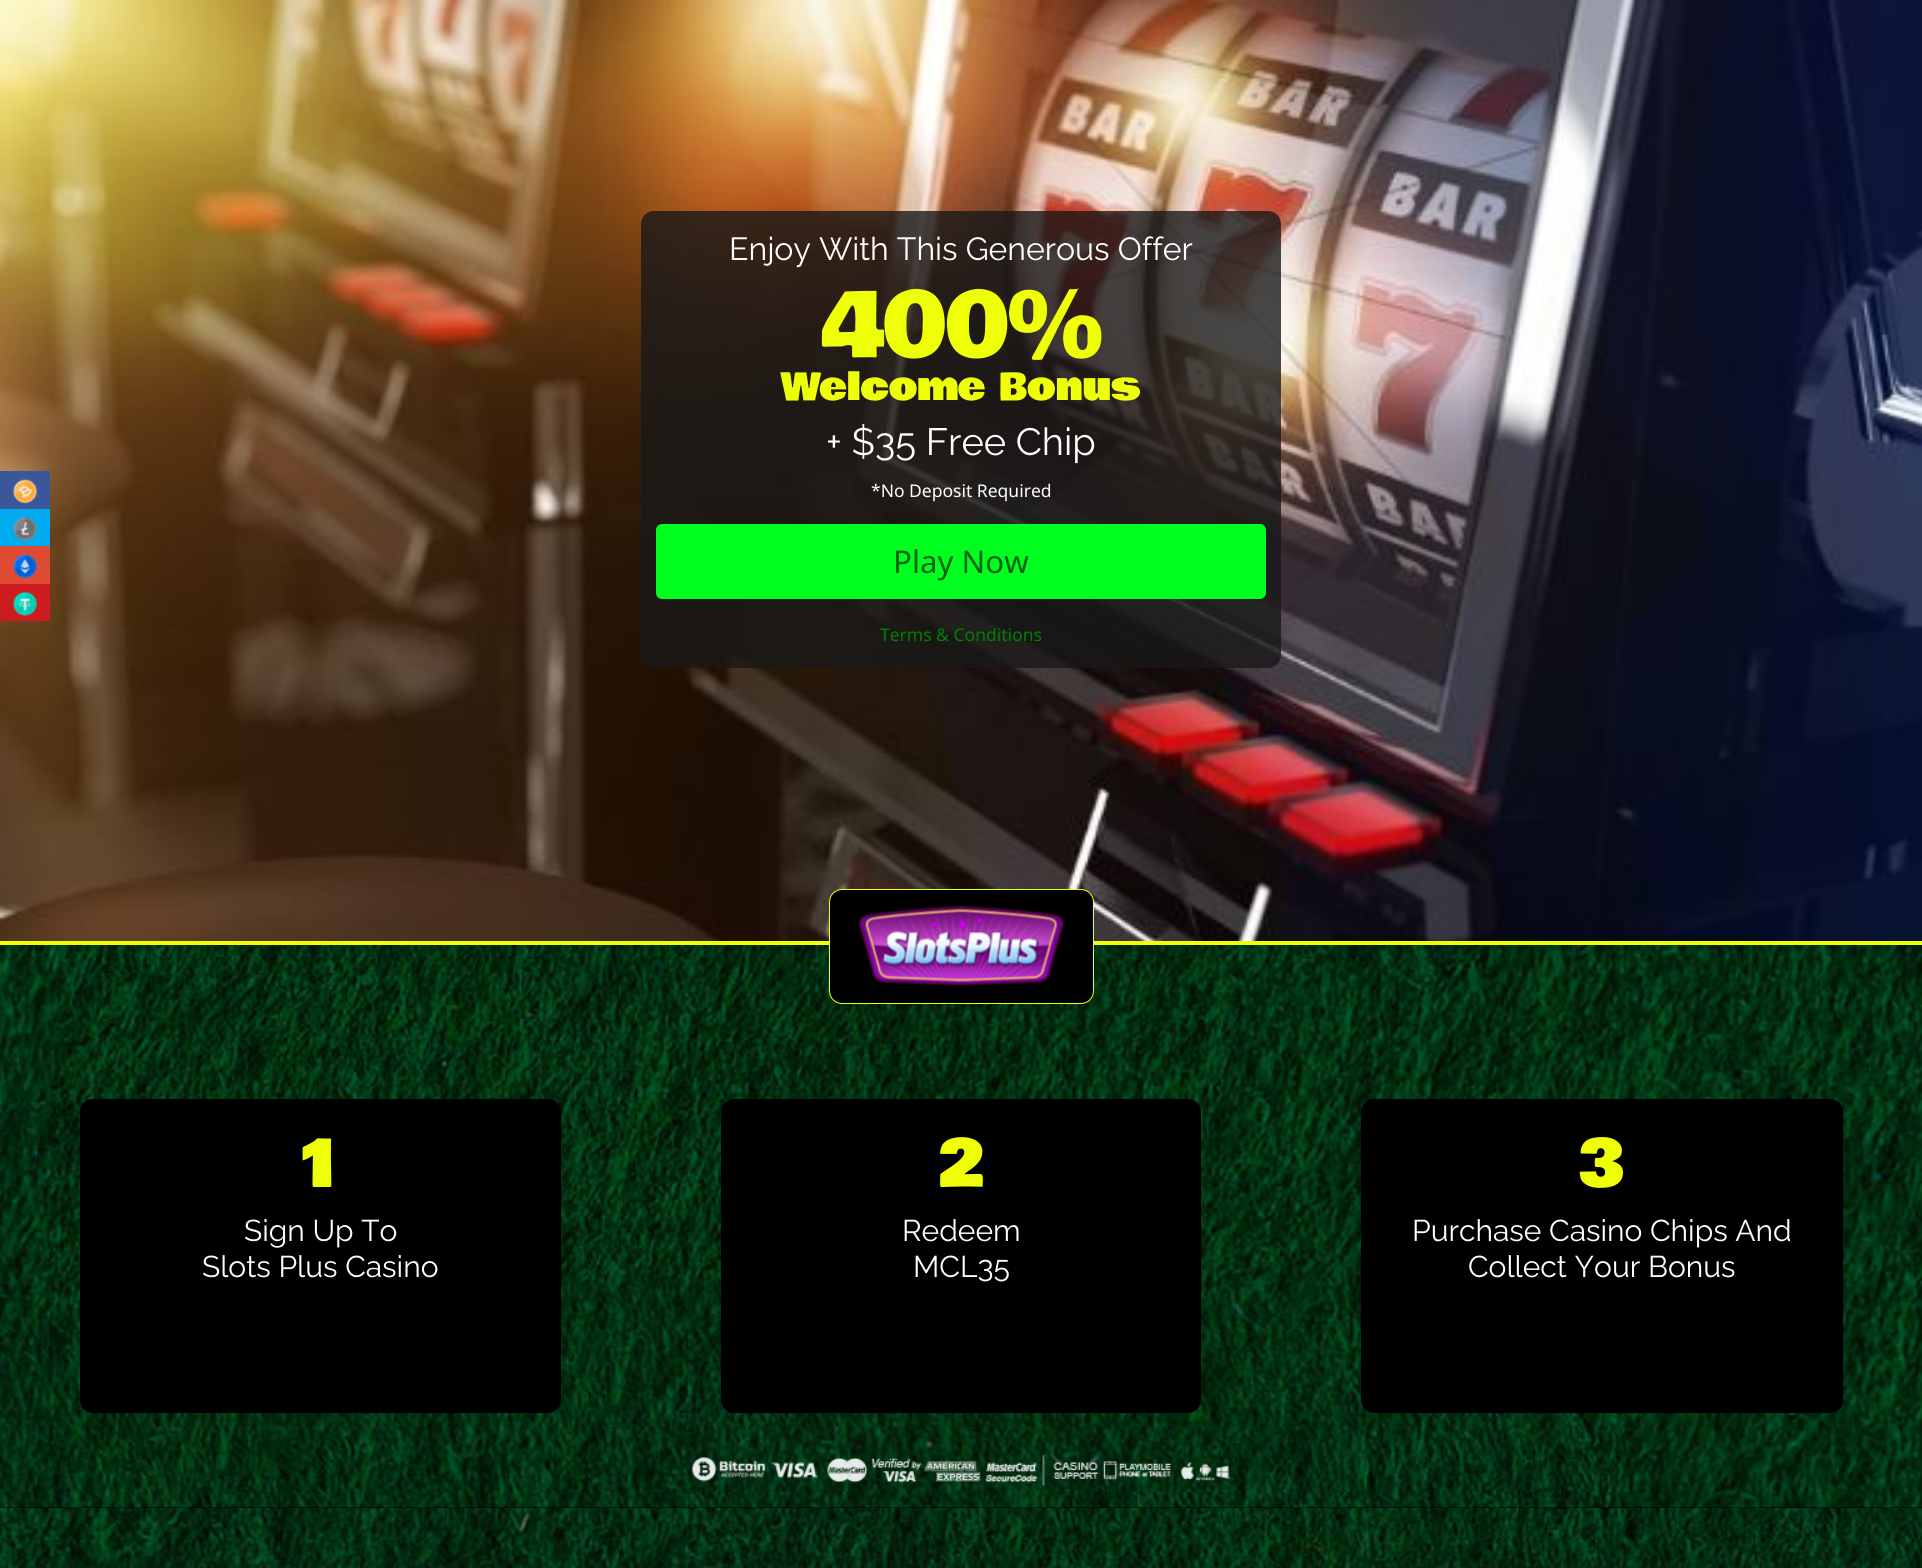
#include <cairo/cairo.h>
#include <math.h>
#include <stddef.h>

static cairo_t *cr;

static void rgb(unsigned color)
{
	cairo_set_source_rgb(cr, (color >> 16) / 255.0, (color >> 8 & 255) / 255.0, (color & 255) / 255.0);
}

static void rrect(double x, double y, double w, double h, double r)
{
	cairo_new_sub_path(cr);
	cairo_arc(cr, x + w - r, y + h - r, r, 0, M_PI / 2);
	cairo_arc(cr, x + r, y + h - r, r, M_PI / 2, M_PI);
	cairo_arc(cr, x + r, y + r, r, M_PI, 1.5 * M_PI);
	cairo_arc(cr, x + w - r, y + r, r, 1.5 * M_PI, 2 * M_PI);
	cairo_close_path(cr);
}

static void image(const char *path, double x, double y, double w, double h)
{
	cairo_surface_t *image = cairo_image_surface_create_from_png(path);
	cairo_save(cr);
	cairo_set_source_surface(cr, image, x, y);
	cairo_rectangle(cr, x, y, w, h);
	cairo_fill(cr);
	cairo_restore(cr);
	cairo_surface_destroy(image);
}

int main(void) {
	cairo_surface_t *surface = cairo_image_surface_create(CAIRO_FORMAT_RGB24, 1922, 1568);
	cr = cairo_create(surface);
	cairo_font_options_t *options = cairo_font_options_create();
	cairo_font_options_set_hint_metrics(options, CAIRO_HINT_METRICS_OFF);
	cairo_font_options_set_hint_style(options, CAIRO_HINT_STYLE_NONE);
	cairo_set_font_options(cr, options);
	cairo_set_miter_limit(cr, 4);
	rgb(0xffffff);
	cairo_paint(cr);
	image("img/1.png", 0, 1508, 1922, 60);
	image("img/7.png", 0, 0, 1922, 941);
	rgb(0x3a579a);
	cairo_rectangle(cr, 0, 471, 50, 38);
	cairo_fill(cr);
	image("img/2.png", 12, 479, 26, 25);
	rgb(0x00abf0);
	cairo_rectangle(cr, 0, 509, 50, 37);
	cairo_fill(cr);
	image("img/3.png", 13, 516, 25, 25);
	rgb(0xdf4a32);
	cairo_rectangle(cr, 0, 546, 50, 38);
	cairo_fill(cr);
	image("img/4.png", 12, 554, 26, 25);
	rgb(0xcd1c1f);
	cairo_rectangle(cr, 0, 584, 50, 37);
	cairo_fill(cr);
	image("img/5.png", 12, 591, 26, 25);
	rgb(0x000000);
	cairo_rectangle(cr, 0, 1507, 1922, 1);
	cairo_fill(cr);
	image("img/6.png", 0, 945, 1922, 563);
	cairo_set_source_rgba(cr, 0.094, 0.094, 0.094, 0.79);
	rrect(641, 211, 640, 457, 13);
	cairo_fill(cr);
	rgb(0x00ff1f);
	rrect(658, 526, 606, 71, 4);
	cairo_fill_preserve(cr);
	cairo_set_line_width(cr, 4);
	cairo_stroke(cr);
	rgb(0xeeff07);
	cairo_rectangle(cr, 0, 941, 1922, 4);
	cairo_fill(cr);
	rgb(0x000000);
	rrect(829.5, 889.5, 264, 114, 12.5);
	cairo_fill_preserve(cr);
	rgb(0xeeff07);
	cairo_set_line_width(cr, 1);
	cairo_stroke(cr);
	image("img/8.png", 858, 905, 207, 81);
	rgb(0x000000);
	rrect(80, 1099, 481, 314, 13);
	cairo_fill(cr);
	rrect(721, 1099, 480, 314, 13);
	cairo_fill(cr);
	rrect(1361, 1099, 482, 314, 13);
	cairo_fill(cr);
	image("img/9.png", 692, 1455, 539, 31);
	cairo_select_font_face(cr, "Raleway Thin", CAIRO_FONT_SLANT_NORMAL, CAIRO_FONT_WEIGHT_NORMAL);
	cairo_set_font_size(cr, 32);
	rgb(0xffffff);
	cairo_move_to(cr, 729, 260);
	cairo_show_text(cr, "Enjoy With This Generous Offer");
	cairo_select_font_face(cr, "Bowlby One", CAIRO_FONT_SLANT_NORMAL, CAIRO_FONT_WEIGHT_NORMAL);
	cairo_set_font_size(cr, 87.5);
	rgb(0xeeff07);
	cairo_move_to(cr, 822, 356);
	cairo_show_text(cr, "400%");
	cairo_set_font_size(cr, 37.5);
	cairo_move_to(cr, 781, 400);
	cairo_show_text(cr, "Welcome Bonus");
	cairo_select_font_face(cr, "Raleway Thin", CAIRO_FONT_SLANT_NORMAL, CAIRO_FONT_WEIGHT_NORMAL);
	cairo_set_font_size(cr, 38);
	rgb(0xffffff);
	cairo_move_to(cr, 826, 455);
	cairo_show_text(cr, "+ $35 Free Chip");
	cairo_select_font_face(cr, "Noto Sans", CAIRO_FONT_SLANT_NORMAL, CAIRO_FONT_WEIGHT_NORMAL);
	cairo_set_font_size(cr, 17.5);
	cairo_move_to(cr, 871, 497);
	cairo_show_text(cr, "*No Deposit Required");
	cairo_set_font_size(cr, 31.25);
	rgb(0x04610f);
	cairo_move_to(cr, 893, 573);
	cairo_show_text(cr, "Play Now");
	cairo_set_font_size(cr, 17.5);
	rgb(0x008000);
	cairo_move_to(cr, 880, 641);
	cairo_show_text(cr, "Terms & Conditions");
	cairo_select_font_face(cr, "Bowlby One", CAIRO_FONT_SLANT_NORMAL, CAIRO_FONT_WEIGHT_NORMAL);
	cairo_set_font_size(cr, 64);
	rgb(0xeeff07);
	cairo_move_to(cr, 296, 1186);
	cairo_show_text(cr, "1");
	cairo_select_font_face(cr, "Raleway Thin", CAIRO_FONT_SLANT_NORMAL, CAIRO_FONT_WEIGHT_NORMAL);
	cairo_set_font_size(cr, 30);
	rgb(0xffffff);
	cairo_move_to(cr, 244, 1241);
	cairo_show_text(cr, "Sign Up To");
	cairo_move_to(cr, 202, 1277);
	cairo_show_text(cr, "Slots Plus Casino");
	cairo_select_font_face(cr, "Bowlby One", CAIRO_FONT_SLANT_NORMAL, CAIRO_FONT_WEIGHT_NORMAL);
	cairo_set_font_size(cr, 64);
	rgb(0xeeff07);
	cairo_move_to(cr, 938, 1186);
	cairo_show_text(cr, "2");
	cairo_select_font_face(cr, "Raleway Thin", CAIRO_FONT_SLANT_NORMAL, CAIRO_FONT_WEIGHT_NORMAL);
	cairo_set_font_size(cr, 30);
	rgb(0xffffff);
	cairo_move_to(cr, 902, 1241);
	cairo_show_text(cr, "Redeem");
	cairo_move_to(cr, 913, 1277);
	cairo_show_text(cr, "MCL35");
	cairo_select_font_face(cr, "Bowlby One", CAIRO_FONT_SLANT_NORMAL, CAIRO_FONT_WEIGHT_NORMAL);
	cairo_set_font_size(cr, 64);
	rgb(0xeeff07);
	cairo_move_to(cr, 1579, 1186);
	cairo_show_text(cr, "3");
	cairo_select_font_face(cr, "Raleway Thin", CAIRO_FONT_SLANT_NORMAL, CAIRO_FONT_WEIGHT_NORMAL);
	cairo_set_font_size(cr, 30);
	rgb(0xffffff);
	cairo_move_to(cr, 1412, 1241);
	cairo_show_text(cr, "Purchase Casino Chips And");
	cairo_move_to(cr, 1468, 1277);
	cairo_show_text(cr, "Collect Your Bonus");
	cairo_surface_write_to_png(surface, "page.png");
	cairo_font_options_destroy(options);
	cairo_destroy(cr);
	cairo_surface_destroy(surface);
	return 0;
}
